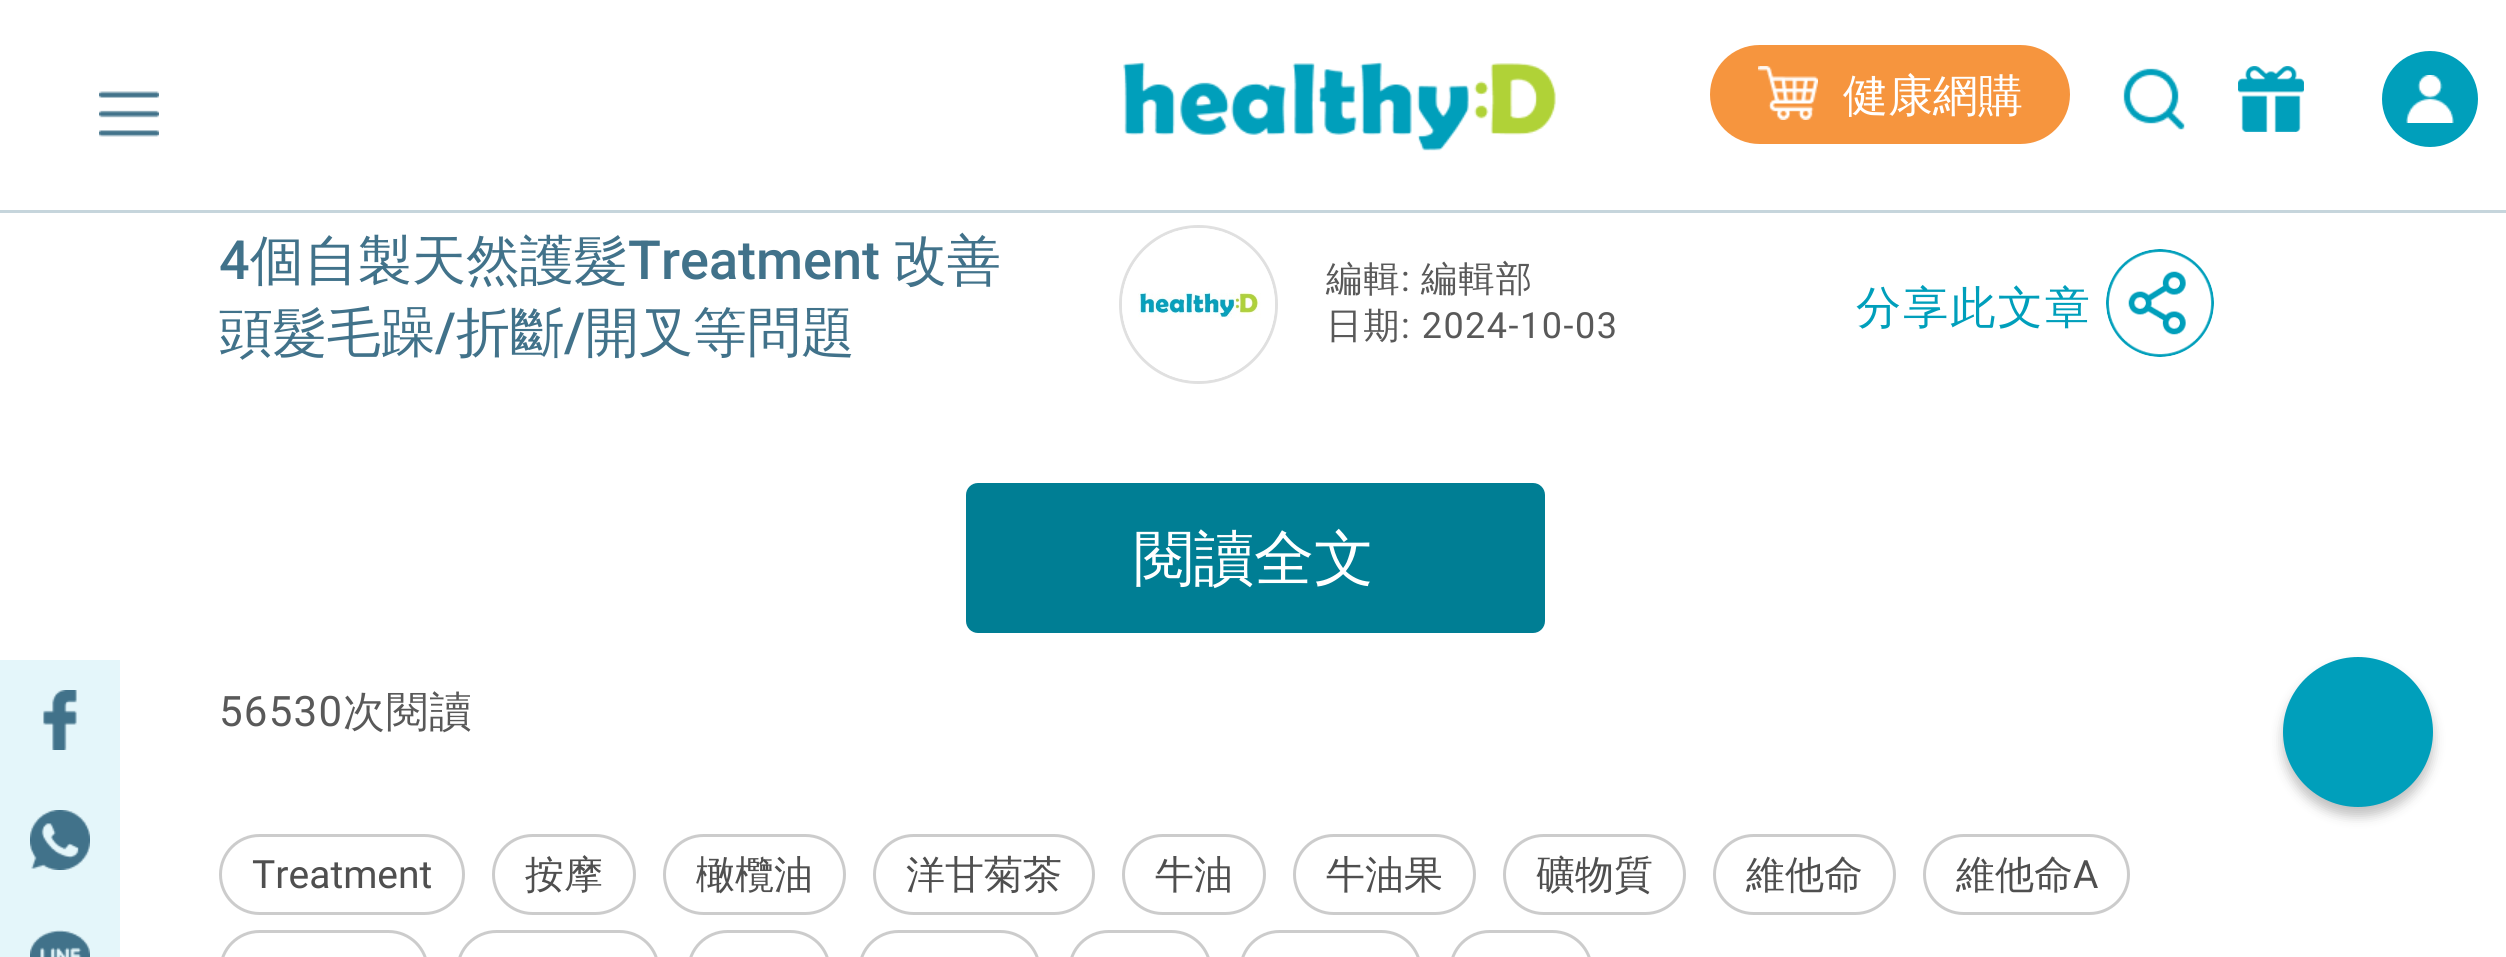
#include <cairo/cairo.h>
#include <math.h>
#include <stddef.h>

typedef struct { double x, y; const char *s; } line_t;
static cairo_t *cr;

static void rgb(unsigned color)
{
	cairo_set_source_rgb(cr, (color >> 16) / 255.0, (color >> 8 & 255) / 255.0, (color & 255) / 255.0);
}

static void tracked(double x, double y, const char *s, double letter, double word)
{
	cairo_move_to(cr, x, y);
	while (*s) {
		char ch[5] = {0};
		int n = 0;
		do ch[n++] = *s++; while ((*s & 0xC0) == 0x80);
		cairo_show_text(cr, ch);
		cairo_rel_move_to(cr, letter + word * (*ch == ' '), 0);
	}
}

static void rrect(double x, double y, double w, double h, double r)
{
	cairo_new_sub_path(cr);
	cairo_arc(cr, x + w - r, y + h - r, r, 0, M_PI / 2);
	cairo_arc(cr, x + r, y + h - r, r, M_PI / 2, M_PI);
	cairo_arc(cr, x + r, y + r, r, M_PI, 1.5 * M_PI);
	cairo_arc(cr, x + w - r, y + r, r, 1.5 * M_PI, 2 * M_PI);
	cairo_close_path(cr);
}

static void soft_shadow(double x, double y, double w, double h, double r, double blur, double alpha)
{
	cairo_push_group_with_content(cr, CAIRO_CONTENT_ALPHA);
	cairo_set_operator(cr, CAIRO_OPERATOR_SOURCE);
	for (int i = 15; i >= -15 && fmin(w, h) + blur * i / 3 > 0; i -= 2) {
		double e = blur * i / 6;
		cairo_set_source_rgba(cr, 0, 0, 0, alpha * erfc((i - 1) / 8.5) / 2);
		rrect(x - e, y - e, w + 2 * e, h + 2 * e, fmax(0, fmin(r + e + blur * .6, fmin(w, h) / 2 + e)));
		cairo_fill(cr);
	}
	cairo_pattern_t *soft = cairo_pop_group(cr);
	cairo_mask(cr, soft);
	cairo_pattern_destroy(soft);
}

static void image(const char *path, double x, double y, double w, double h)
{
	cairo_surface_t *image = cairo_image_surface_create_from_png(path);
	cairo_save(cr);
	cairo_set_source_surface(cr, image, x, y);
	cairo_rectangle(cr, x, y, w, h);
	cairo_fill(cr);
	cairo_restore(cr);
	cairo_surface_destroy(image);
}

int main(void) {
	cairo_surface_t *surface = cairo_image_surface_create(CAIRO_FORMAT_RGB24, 2506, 957);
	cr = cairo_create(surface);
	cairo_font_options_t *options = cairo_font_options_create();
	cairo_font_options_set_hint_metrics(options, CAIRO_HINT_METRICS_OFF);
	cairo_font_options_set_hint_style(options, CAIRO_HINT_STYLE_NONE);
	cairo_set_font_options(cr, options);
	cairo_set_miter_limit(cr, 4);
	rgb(0xffffff);
	cairo_paint(cr);
	rgb(0xc6d5dc);
	cairo_rectangle(cr, 0, 210, 2506, 3);
	cairo_fill(cr);
	image("img/1.png", 99, 91, 60, 46);
	image("img/2.png", 1123, 61, 433, 90);
	rgb(0xf6953e);
	rrect(1710, 45, 360, 99, 49.5);
	cairo_fill(cr);
	image("img/3.png", 1758, 66, 60, 54);
	image("img/4.png", 2123, 68, 62, 62);
	image("img/5.png", 2238, 66, 66, 66);
	rgb(0x009fbb);
	cairo_arc(cr, 2430, 99, 48, 0, 2 * M_PI);
	cairo_fill(cr);
	image("img/6.png", 2406, 75, 48, 48);
	rgb(0xe4f6fa);
	cairo_rectangle(cr, 0, 660, 120, 297);
	cairo_fill(cr);
	image("img/7.png", 43, 690, 34, 60);
	image("img/8.png", 30, 810, 60, 60);
	image("img/9.png", 30, 930, 60, 27);
	cairo_arc(cr, 1198.5, 304.5, 78, 0, 2 * M_PI);
	rgb(0xe0e0e0);
	cairo_set_line_width(cr, 3);
	cairo_stroke(cr);
	image("img/10.png", 1122, 228, 153, 153);
	image("img/11.png", 2106, 249, 108, 108);
	rgb(0x007e94);
	rrect(966, 483, 579, 150, 12);
	cairo_fill(cr);
	rrect(220.5, 835.5, 243, 78, 39);
	rgb(0xcccccc);
	cairo_stroke(cr);
	rrect(493.5, 835.5, 141, 78, 39);
	cairo_stroke(cr);
	rrect(664.5, 835.5, 180, 78, 39);
	cairo_stroke(cr);
	rrect(874.5, 835.5, 219, 78, 39);
	cairo_stroke(cr);
	rrect(1123.5, 835.5, 141, 78, 39);
	cairo_stroke(cr);
	rrect(1294.5, 835.5, 180, 78, 39);
	cairo_stroke(cr);
	rrect(1504.5, 835.5, 180, 78, 39);
	cairo_stroke(cr);
	rrect(1714.5, 835.5, 180, 78, 39);
	cairo_stroke(cr);
	rrect(1924.5, 835.5, 204, 78, 39);
	cairo_stroke(cr);
	rrect(220.5, 931.5, 207, 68, 39);
	cairo_stroke(cr);
	rrect(457.5, 931.5, 201, 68, 39);
	cairo_stroke(cr);
	rrect(688.5, 931.5, 141, 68, 39);
	cairo_stroke(cr);
	rrect(859.5, 931.5, 180, 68, 39);
	cairo_stroke(cr);
	rrect(1069.5, 931.5, 141, 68, 39);
	cairo_stroke(cr);
	rrect(1240.5, 931.5, 180, 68, 39);
	cairo_stroke(cr);
	rrect(1450.5, 931.5, 141, 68, 39);
	cairo_stroke(cr);
	rgb(0x000000);
	soft_shadow(2283, 666, 150, 150, 75, 6, 0.25);
	rgb(0x009fbb);
	cairo_arc(cr, 2358, 732, 75, 0, 2 * M_PI);
	cairo_fill(cr);
	cairo_select_font_face(cr, "WenQuanYi Zen Hei Medium", CAIRO_FONT_SLANT_NORMAL, CAIRO_FONT_WEIGHT_NORMAL);
	cairo_set_font_size(cr, 45);
	rgb(0xffffff);
	cairo_move_to(cr, 1843, 111);
	cairo_show_text(cr, "健康網購");
	cairo_select_font_face(cr, "Roboto Medium", CAIRO_FONT_SLANT_NORMAL, CAIRO_FONT_WEIGHT_NORMAL);
	cairo_set_font_size(cr, 54);
	rgb(0x41728a);
	cairo_move_to(cr, 219, 279);
	cairo_show_text(cr, "4");
	cairo_select_font_face(cr, "WenQuanYi Zen Hei Medium", CAIRO_FONT_SLANT_NORMAL, CAIRO_FONT_WEIGHT_NORMAL);
	cairo_move_to(cr, 250, 279);
	cairo_show_text(cr, "個自製天然護髮");
	cairo_select_font_face(cr, "Roboto Medium", CAIRO_FONT_SLANT_NORMAL, CAIRO_FONT_WEIGHT_NORMAL);
	cairo_move_to(cr, 628, 279);
	cairo_show_text(cr, "Treatment");
	cairo_select_font_face(cr, "WenQuanYi Zen Hei Medium", CAIRO_FONT_SLANT_NORMAL, CAIRO_FONT_WEIGHT_NORMAL);
	cairo_move_to(cr, 893, 279);
	cairo_show_text(cr, "改善");
	cairo_move_to(cr, 219, 351);
	cairo_show_text(cr, "頭髮毛躁");
	cairo_select_font_face(cr, "Roboto Medium", CAIRO_FONT_SLANT_NORMAL, CAIRO_FONT_WEIGHT_NORMAL);
	cairo_move_to(cr, 435, 351);
	cairo_show_text(cr, "/");
	cairo_select_font_face(cr, "WenQuanYi Zen Hei Medium", CAIRO_FONT_SLANT_NORMAL, CAIRO_FONT_WEIGHT_NORMAL);
	cairo_move_to(cr, 456, 351);
	cairo_show_text(cr, "折斷");
	cairo_select_font_face(cr, "Roboto Medium", CAIRO_FONT_SLANT_NORMAL, CAIRO_FONT_WEIGHT_NORMAL);
	cairo_move_to(cr, 564, 351);
	cairo_show_text(cr, "/");
	cairo_select_font_face(cr, "WenQuanYi Zen Hei Medium", CAIRO_FONT_SLANT_NORMAL, CAIRO_FONT_WEIGHT_NORMAL);
	cairo_move_to(cr, 585, 351);
	cairo_show_text(cr, "開叉等問題");
	cairo_set_font_size(cr, 36);
	rgb(0x595959);
	tracked(1326, 291, "編輯", 1.5, 0);
	cairo_select_font_face(cr, "Roboto", CAIRO_FONT_SLANT_NORMAL, CAIRO_FONT_WEIGHT_NORMAL);
	tracked(1401, 291, ":", 1.5, 0);
	cairo_select_font_face(cr, "WenQuanYi Zen Hei Medium", CAIRO_FONT_SLANT_NORMAL, CAIRO_FONT_WEIGHT_NORMAL);
	tracked(1421, 291, "編輯部", 1.5, 0);
	tracked(1326, 338, "日期", 1.5, 0);
	cairo_select_font_face(cr, "Roboto", CAIRO_FONT_SLANT_NORMAL, CAIRO_FONT_WEIGHT_NORMAL);
	tracked(1401, 338, ": 2024-10-03", 1.5, 0);
	cairo_select_font_face(cr, "WenQuanYi Zen Hei Medium", CAIRO_FONT_SLANT_NORMAL, CAIRO_FONT_WEIGHT_NORMAL);
	cairo_set_font_size(cr, 45);
	rgb(0x009fbb);
	tracked(1856, 323, "分享此文章", 2.25, 0);
	cairo_set_font_size(cr, 60);
	rgb(0xffffff);
	cairo_move_to(cr, 1134, 579);
	cairo_show_text(cr, "閱讀全文");
	cairo_select_font_face(cr, "Roboto", CAIRO_FONT_SLANT_NORMAL, CAIRO_FONT_WEIGHT_NORMAL);
	cairo_set_font_size(cr, 42);
	rgb(0x595959);
	tracked(219, 726, "56530", 1.25, 0);
	cairo_select_font_face(cr, "WenQuanYi Zen Hei Medium", CAIRO_FONT_SLANT_NORMAL, CAIRO_FONT_WEIGHT_NORMAL);
	tracked(343, 726, "次閱讀", 1.25, 0);
	cairo_select_font_face(cr, "Roboto", CAIRO_FONT_SLANT_NORMAL, CAIRO_FONT_WEIGHT_NORMAL);
	cairo_set_font_size(cr, 39);
	rgb(0x4f4f4f);
	cairo_move_to(cr, 252, 888);
	cairo_show_text(cr, "Treatment");
	cairo_select_font_face(cr, "WenQuanYi Zen Hei Medium", CAIRO_FONT_SLANT_NORMAL, CAIRO_FONT_WEIGHT_NORMAL);
	{
		static const line_t items[] = {
			{525, 888, "按摩"},
			{696, 888, "橄欖油"},
			{906, 888, "洋甘菊茶"},
			{1155, 888, "牛油"},
			{1326, 888, "牛油果"},
			{1536, 888, "礦物質"},
			{1746, 888, "維他命"},
			{1956, 888, "維他命"},
		};
		for (size_t i = 0; i < sizeof items / sizeof *items; i++) {
			cairo_move_to(cr, items[i].x, items[i].y);
			cairo_show_text(cr, items[i].s);
		}
	}
	cairo_select_font_face(cr, "Roboto", CAIRO_FONT_SLANT_NORMAL, CAIRO_FONT_WEIGHT_NORMAL);
	cairo_move_to(cr, 2073, 888);
	cairo_show_text(cr, "A");
	cairo_surface_write_to_png(surface, "page.png");
	cairo_font_options_destroy(options);
	cairo_destroy(cr);
	cairo_surface_destroy(surface);
	return 0;
}
